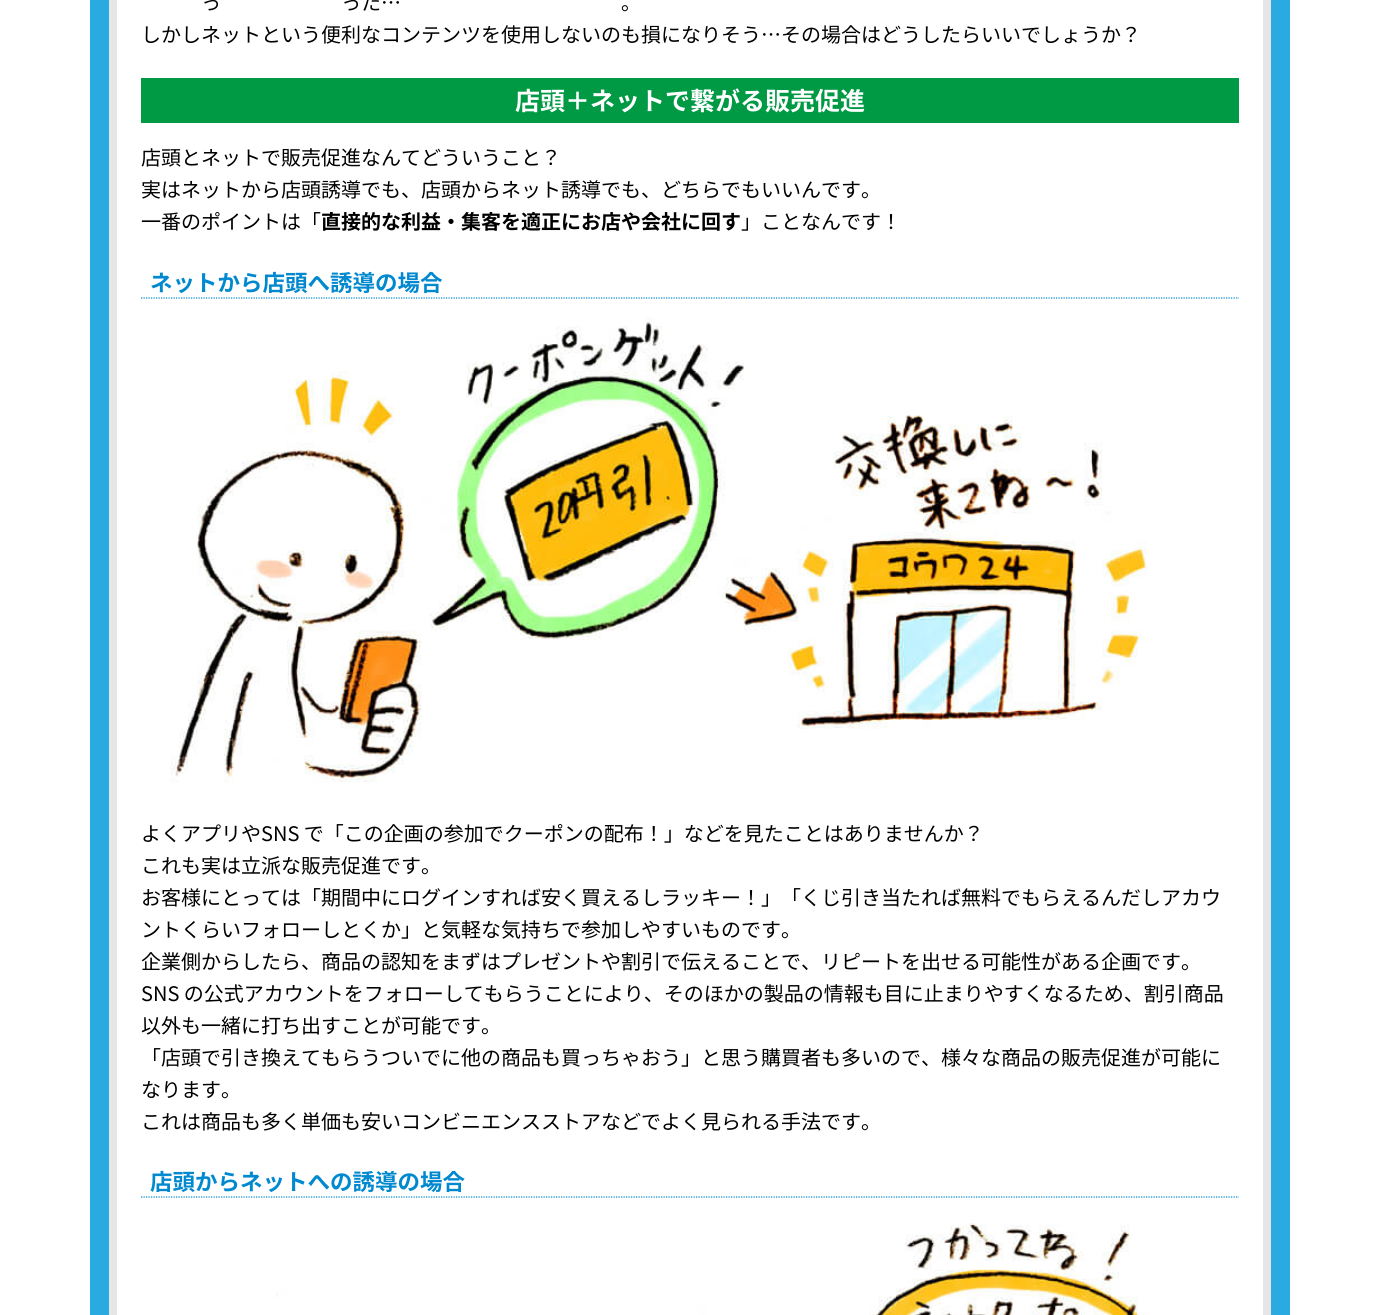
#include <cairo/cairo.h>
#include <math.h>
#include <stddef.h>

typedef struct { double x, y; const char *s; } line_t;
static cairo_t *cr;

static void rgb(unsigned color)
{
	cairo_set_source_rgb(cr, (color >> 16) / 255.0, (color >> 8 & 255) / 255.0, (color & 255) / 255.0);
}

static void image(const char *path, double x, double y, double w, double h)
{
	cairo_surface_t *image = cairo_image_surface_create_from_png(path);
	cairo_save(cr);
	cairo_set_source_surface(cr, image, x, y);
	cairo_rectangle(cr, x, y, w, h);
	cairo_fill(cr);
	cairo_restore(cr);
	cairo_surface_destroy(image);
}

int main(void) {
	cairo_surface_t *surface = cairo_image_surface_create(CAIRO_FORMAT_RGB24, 1379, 1315);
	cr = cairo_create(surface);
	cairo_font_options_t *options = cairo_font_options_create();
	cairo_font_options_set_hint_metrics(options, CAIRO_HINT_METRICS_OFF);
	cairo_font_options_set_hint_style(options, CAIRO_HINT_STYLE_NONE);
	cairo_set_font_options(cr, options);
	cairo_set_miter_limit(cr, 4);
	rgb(0xffffff);
	cairo_paint(cr);
	rgb(0x29abe2);
	cairo_rectangle(cr, 90, 0, 1200, 1315);
	cairo_fill(cr);
	rgb(0xffffff);
	cairo_rectangle(cr, 113, -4, 1154, 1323);
	cairo_fill_preserve(cr);
	rgb(0xe6e6e6);
	cairo_set_line_width(cr, 8);
	cairo_stroke(cr);
	rgb(0x009944);
	cairo_rectangle(cr, 141, 78, 1098, 45);
	cairo_fill(cr);
	cairo_new_path(cr);
	cairo_move_to(cr, 141, 298);
	cairo_line_to(cr, 1239, 298);
	rgb(0x0089cf);
	cairo_set_line_width(cr, 1.2);
	cairo_set_dash(cr, (double[]){1.25, 1.25}, 2, 0);
	cairo_stroke(cr);
	image("img/1.png", 170, 317, 977, 466);
	cairo_new_path(cr);
	cairo_move_to(cr, 141, 1197);
	cairo_line_to(cr, 1239, 1197);
	cairo_stroke(cr);
	image("img/2.png", 276, 1223, 871, 92);
	cairo_select_font_face(cr, "Noto Sans JP", CAIRO_FONT_SLANT_NORMAL, CAIRO_FONT_WEIGHT_NORMAL);
	cairo_set_font_size(cr, 20);
	rgb(0x000000);
	{
		static const line_t items[] = {
			{201, 10, "っ"},
			{341, 10, "った…"},
			{621, 10, "。"},
			{141, 42, "しかしネットという便利なコンテンツを使用しないのも損になりそう…その場合はどうしたらいいでしょうか？"},
		};
		for (size_t i = 0; i < sizeof items / sizeof *items; i++) {
			cairo_move_to(cr, items[i].x, items[i].y);
			cairo_show_text(cr, items[i].s);
		}
	}
	cairo_select_font_face(cr, "Noto Sans JP", CAIRO_FONT_SLANT_NORMAL, CAIRO_FONT_WEIGHT_BOLD);
	cairo_set_font_size(cr, 25);
	rgb(0xffffff);
	cairo_move_to(cr, 515, 110);
	cairo_show_text(cr, "店頭＋ネットで繋がる販売促進");
	cairo_select_font_face(cr, "Noto Sans JP", CAIRO_FONT_SLANT_NORMAL, CAIRO_FONT_WEIGHT_NORMAL);
	cairo_set_font_size(cr, 20);
	rgb(0x000000);
	{
		static const line_t items[] = {
			{141, 165, "店頭とネットで販売促進なんてどういうこと？"},
			{141, 197, "実はネットから店頭誘導でも、店頭からネット誘導でも、どちらでもいいんです。"},
			{141, 229, "一番のポイントは「"},
		};
		for (size_t i = 0; i < sizeof items / sizeof *items; i++) {
			cairo_move_to(cr, items[i].x, items[i].y);
			cairo_show_text(cr, items[i].s);
		}
	}
	cairo_select_font_face(cr, "Noto Sans JP", CAIRO_FONT_SLANT_NORMAL, CAIRO_FONT_WEIGHT_BOLD);
	cairo_move_to(cr, 321, 229);
	cairo_show_text(cr, "直接的な利益・集客を適正にお店や会社に回す");
	cairo_select_font_face(cr, "Noto Sans JP", CAIRO_FONT_SLANT_NORMAL, CAIRO_FONT_WEIGHT_NORMAL);
	cairo_move_to(cr, 741, 229);
	cairo_show_text(cr, "」ことなんです！");
	cairo_select_font_face(cr, "Noto Sans JP", CAIRO_FONT_SLANT_NORMAL, CAIRO_FONT_WEIGHT_BOLD);
	cairo_set_font_size(cr, 22.5);
	rgb(0x0089cf);
	cairo_move_to(cr, 150, 291);
	cairo_show_text(cr, "ネットから店頭へ誘導の場合");
	cairo_select_font_face(cr, "Noto Sans JP", CAIRO_FONT_SLANT_NORMAL, CAIRO_FONT_WEIGHT_NORMAL);
	cairo_set_font_size(cr, 20);
	rgb(0x000000);
	{
		static const line_t items[] = {
			{141, 841, "よくアプリやSNS で「この企画の参加でクーポンの配布！」などを見たことはありませんか？"},
			{141, 873, "これも実は立派な販売促進です。"},
			{141, 905, "お客様にとっては「期間中にログインすれば安く買えるしラッキー！」「くじ引き当たれば無料でもらえるんだしアカウ"},
			{141, 937, "ントくらいフォローしとくか」と気軽な気持ちで参加しやすいものです。"},
			{141, 969, "企業側からしたら、商品の認知をまずはプレゼントや割引で伝えることで、リピートを出せる可能性がある企画です。"},
			{141, 1001, "SNS の公式アカウントをフォローしてもらうことにより、そのほかの製品の情報も目に止まりやすくなるため、割引商品"},
			{141, 1033, "以外も一緒に打ち出すことが可能です。"},
			{141, 1065, "「店頭で引き換えてもらうついでに他の商品も買っちゃおう」と思う購買者も多いので、様々な商品の販売促進が可能に"},
			{141, 1097, "なります。"},
			{141, 1129, "これは商品も多く単価も安いコンビニエンスストアなどでよく見られる手法です。"},
		};
		for (size_t i = 0; i < sizeof items / sizeof *items; i++) {
			cairo_move_to(cr, items[i].x, items[i].y);
			cairo_show_text(cr, items[i].s);
		}
	}
	cairo_select_font_face(cr, "Noto Sans JP", CAIRO_FONT_SLANT_NORMAL, CAIRO_FONT_WEIGHT_BOLD);
	cairo_set_font_size(cr, 22.5);
	rgb(0x0089cf);
	cairo_move_to(cr, 150, 1190);
	cairo_show_text(cr, "店頭からネットへの誘導の場合");
	cairo_surface_write_to_png(surface, "page.png");
	cairo_font_options_destroy(options);
	cairo_destroy(cr);
	cairo_surface_destroy(surface);
	return 0;
}
